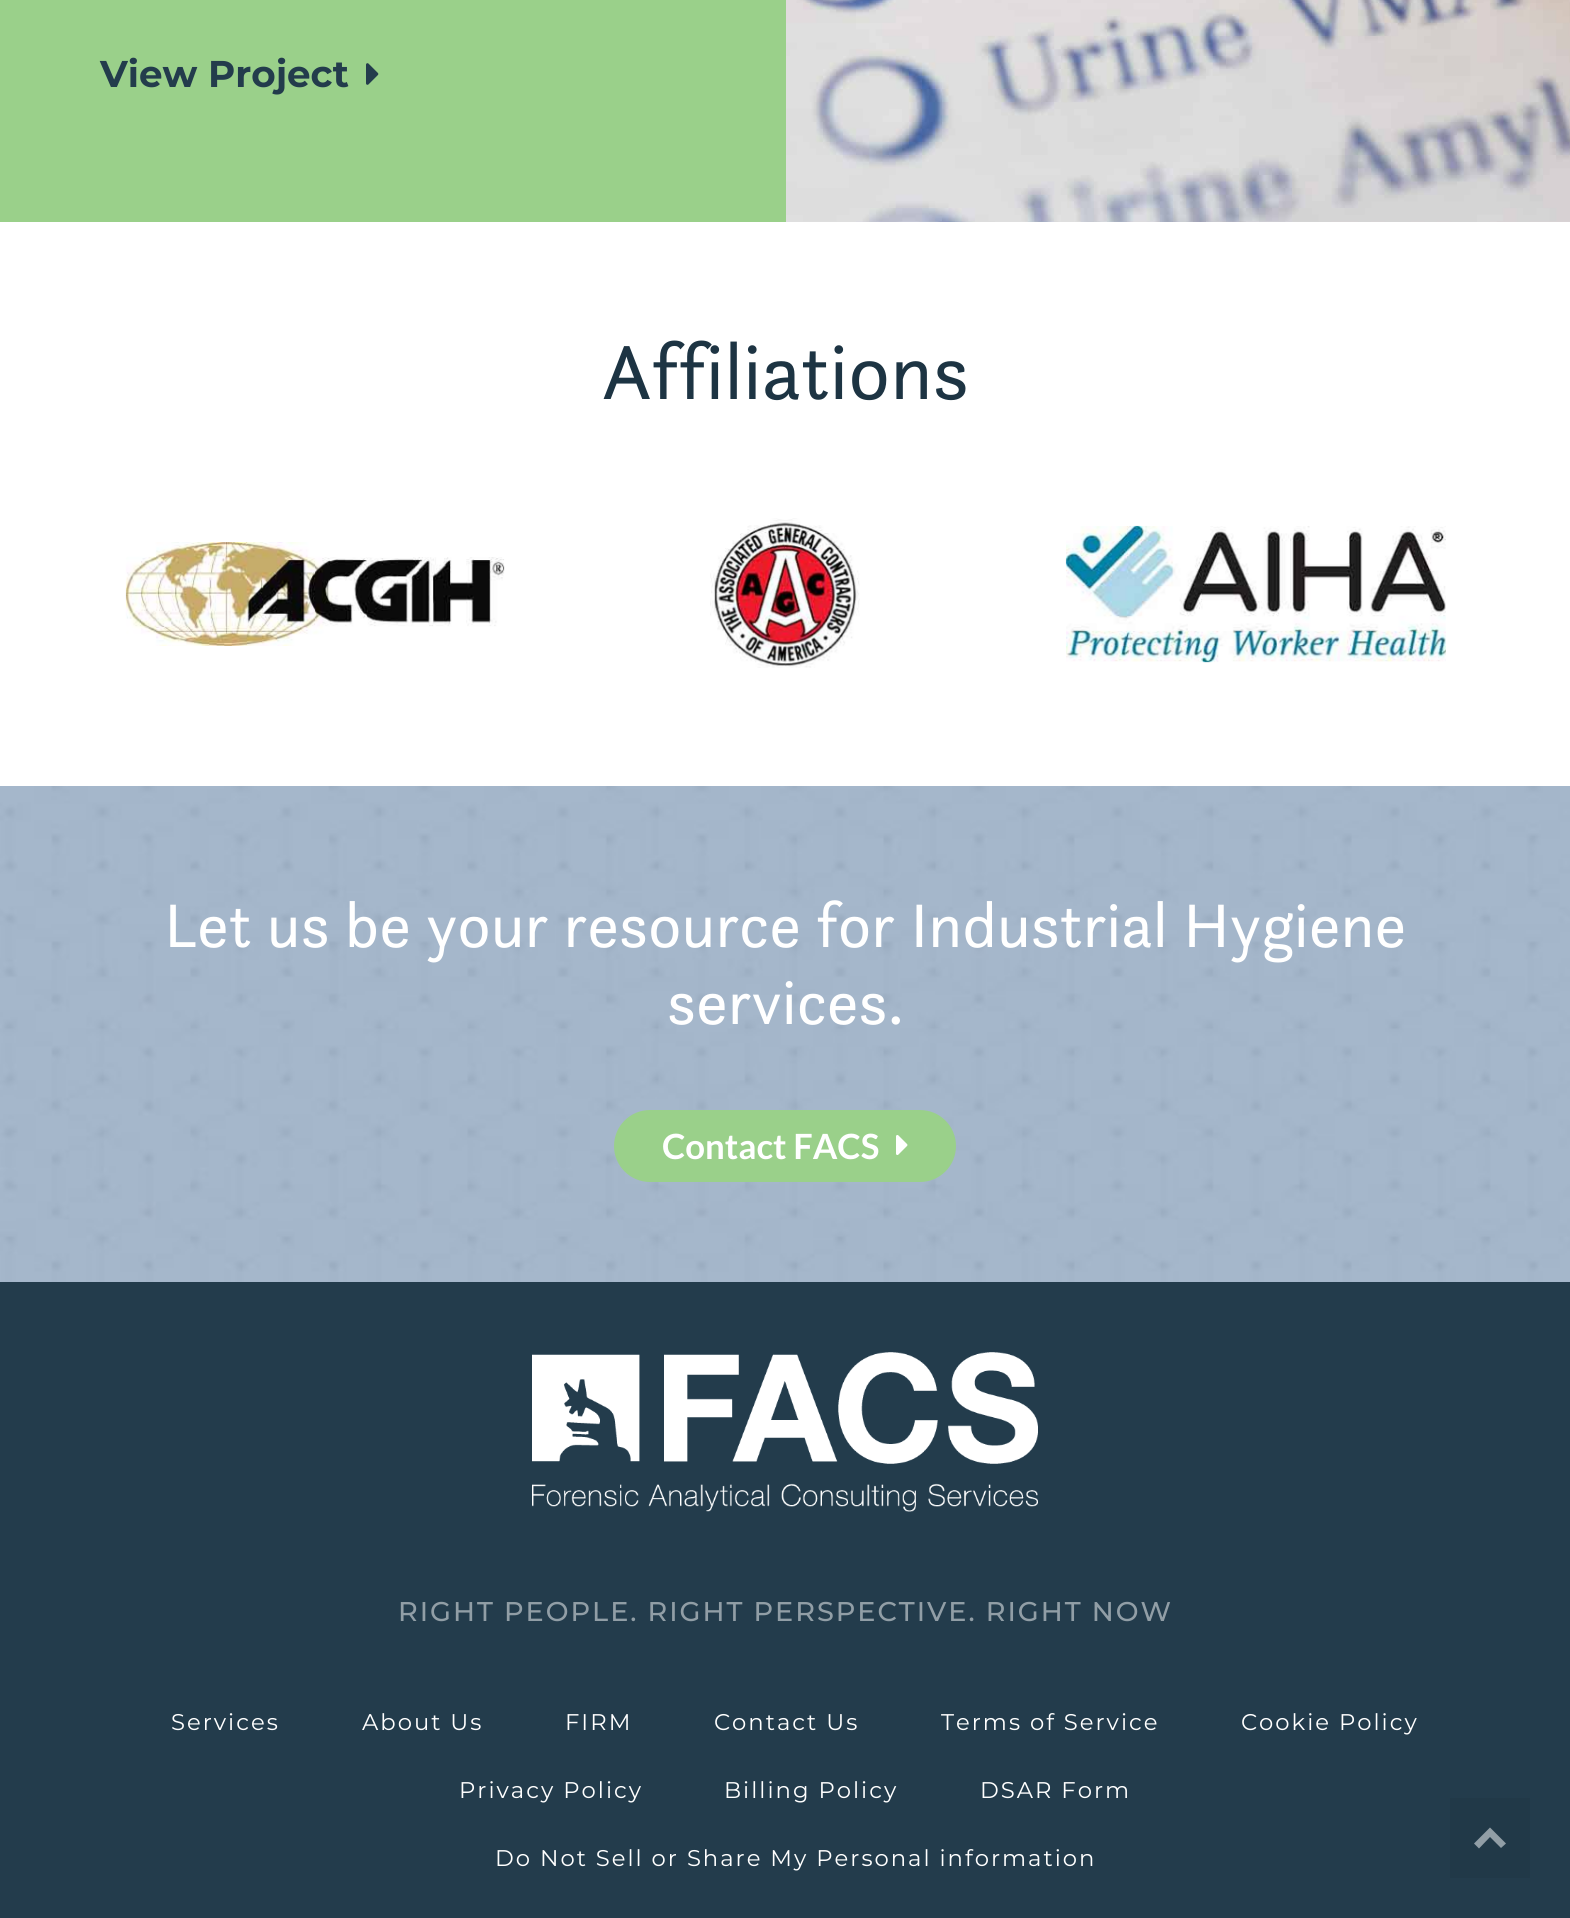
#include <cairo/cairo.h>
#include <math.h>
#include <stddef.h>

typedef struct { double x, y; const char *s; } line_t;
static cairo_t *cr;

static void rgb(unsigned color)
{
	cairo_set_source_rgb(cr, (color >> 16) / 255.0, (color >> 8 & 255) / 255.0, (color & 255) / 255.0);
}

static void tracked(double x, double y, const char *s, double letter, double word)
{
	cairo_move_to(cr, x, y);
	while (*s) {
		char ch[5] = {0};
		int n = 0;
		do ch[n++] = *s++; while ((*s & 0xC0) == 0x80);
		cairo_show_text(cr, ch);
		cairo_rel_move_to(cr, letter + word * (*ch == ' '), 0);
	}
}

static void rrect(double x, double y, double w, double h, double r)
{
	cairo_new_sub_path(cr);
	cairo_arc(cr, x + w - r, y + h - r, r, 0, M_PI / 2);
	cairo_arc(cr, x + r, y + h - r, r, M_PI / 2, M_PI);
	cairo_arc(cr, x + r, y + r, r, M_PI, 1.5 * M_PI);
	cairo_arc(cr, x + w - r, y + r, r, 1.5 * M_PI, 2 * M_PI);
	cairo_close_path(cr);
}

static void image(const char *path, double x, double y, double w, double h)
{
	cairo_surface_t *image = cairo_image_surface_create_from_png(path);
	cairo_save(cr);
	cairo_set_source_surface(cr, image, x, y);
	cairo_rectangle(cr, x, y, w, h);
	cairo_fill(cr);
	cairo_restore(cr);
	cairo_surface_destroy(image);
}

int main(void) {
	cairo_surface_t *surface = cairo_image_surface_create(CAIRO_FORMAT_RGB24, 1570, 1918);
	cr = cairo_create(surface);
	cairo_font_options_t *options = cairo_font_options_create();
	cairo_font_options_set_hint_metrics(options, CAIRO_HINT_METRICS_OFF);
	cairo_font_options_set_hint_style(options, CAIRO_HINT_STYLE_NONE);
	cairo_set_font_options(cr, options);
	cairo_set_miter_limit(cr, 4);
	rgb(0xffffff);
	cairo_paint(cr);
	rgb(0x9ad08a);
	cairo_rectangle(cr, 0, 0, 786, 222);
	cairo_fill(cr);
	image("img/1.png", 366, 63, 13, 22);
	image("img/2.png", 786, 0, 784, 222);
	image("img/3.png", 125, 542, 380, 104);
	image("img/4.png", 710, 518, 150, 150);
	image("img/5.png", 1065, 525, 381, 138);
	image("img/6.png", 0, 786, 1570, 496);
	rrect(614, 1110, 342, 72, 36);
	cairo_fill(cr);
	image("img/7.png", 896, 1135, 12, 20);
	rgb(0x233c4c);
	cairo_rectangle(cr, 0, 1282, 1570, 636);
	cairo_fill(cr);
	image("img/8.png", 532, 1352, 506, 160);
	rgb(0x213948);
	cairo_rectangle(cr, 1450, 1798, 80, 80);
	cairo_fill(cr);
	rgb(0x919ea6);
	cairo_new_path(cr);
	cairo_move_to(cr, 1490, 1827.5);
	cairo_line_to(cr, 1506, 1843.5);
	cairo_line_to(cr, 1501, 1848);
	cairo_line_to(cr, 1490, 1837);
	cairo_line_to(cr, 1479, 1848.5);
	cairo_line_to(cr, 1474, 1843.5);
	cairo_close_path(cr);
	cairo_fill(cr);
	cairo_select_font_face(cr, "Montserrat", CAIRO_FONT_SLANT_NORMAL, CAIRO_FONT_WEIGHT_BOLD);
	cairo_set_font_size(cr, 37.25);
	rgb(0x233c4c);
	cairo_move_to(cr, 100, 87);
	cairo_show_text(cr, "View Project");
	cairo_select_font_face(cr, "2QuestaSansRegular", CAIRO_FONT_SLANT_NORMAL, CAIRO_FONT_WEIGHT_NORMAL);
	cairo_set_font_size(cr, 80);
	rgb(0x1d3443);
	cairo_move_to(cr, 602, 399);
	cairo_show_text(cr, "Affiliations");
	cairo_set_font_size(cr, 64);
	rgb(0xffffff);
	cairo_move_to(cr, 164, 947);
	cairo_show_text(cr, "Let us be your resource for Industrial Hygiene");
	cairo_move_to(cr, 667, 1024);
	cairo_show_text(cr, "services.");
	cairo_select_font_face(cr, "Lato", CAIRO_FONT_SLANT_NORMAL, CAIRO_FONT_WEIGHT_BOLD);
	cairo_set_font_size(cr, 34.75);
	cairo_move_to(cr, 662, 1159);
	cairo_show_text(cr, "Contact FACS");
	cairo_select_font_face(cr, "Montserrat Medium", CAIRO_FONT_SLANT_NORMAL, CAIRO_FONT_WEIGHT_NORMAL);
	cairo_set_font_size(cr, 27.1);
	rgb(0x919ea6);
	tracked(398, 1621, "RIGHT PEOPLE. RIGHT PERSPECTIVE. RIGHT NOW", 2, -0.25);
	cairo_select_font_face(cr, "Montserrat", CAIRO_FONT_SLANT_NORMAL, CAIRO_FONT_WEIGHT_NORMAL);
	cairo_set_font_size(cr, 22.7);
	rgb(0xffffff);
	{
		static const line_t items[] = {
			{171, 1730, "Services"},
			{362, 1730, "About Us"},
			{565, 1730, "FIRM"},
			{714, 1730, "Contact Us"},
			{941, 1730, "Terms of Service"},
			{1241, 1730, "Cookie Policy"},
			{459, 1798, "Privacy Policy"},
			{724, 1798, "Billing Policy"},
			{980, 1798, "DSAR Form"},
			{495, 1866, "Do Not Sell or Share My Personal information"},
		};
		for (size_t i = 0; i < sizeof items / sizeof *items; i++) {
			tracked(items[i].x, items[i].y, items[i].s, 2, 0);
		}
	}
	cairo_surface_write_to_png(surface, "page.png");
	cairo_font_options_destroy(options);
	cairo_destroy(cr);
	cairo_surface_destroy(surface);
	return 0;
}
